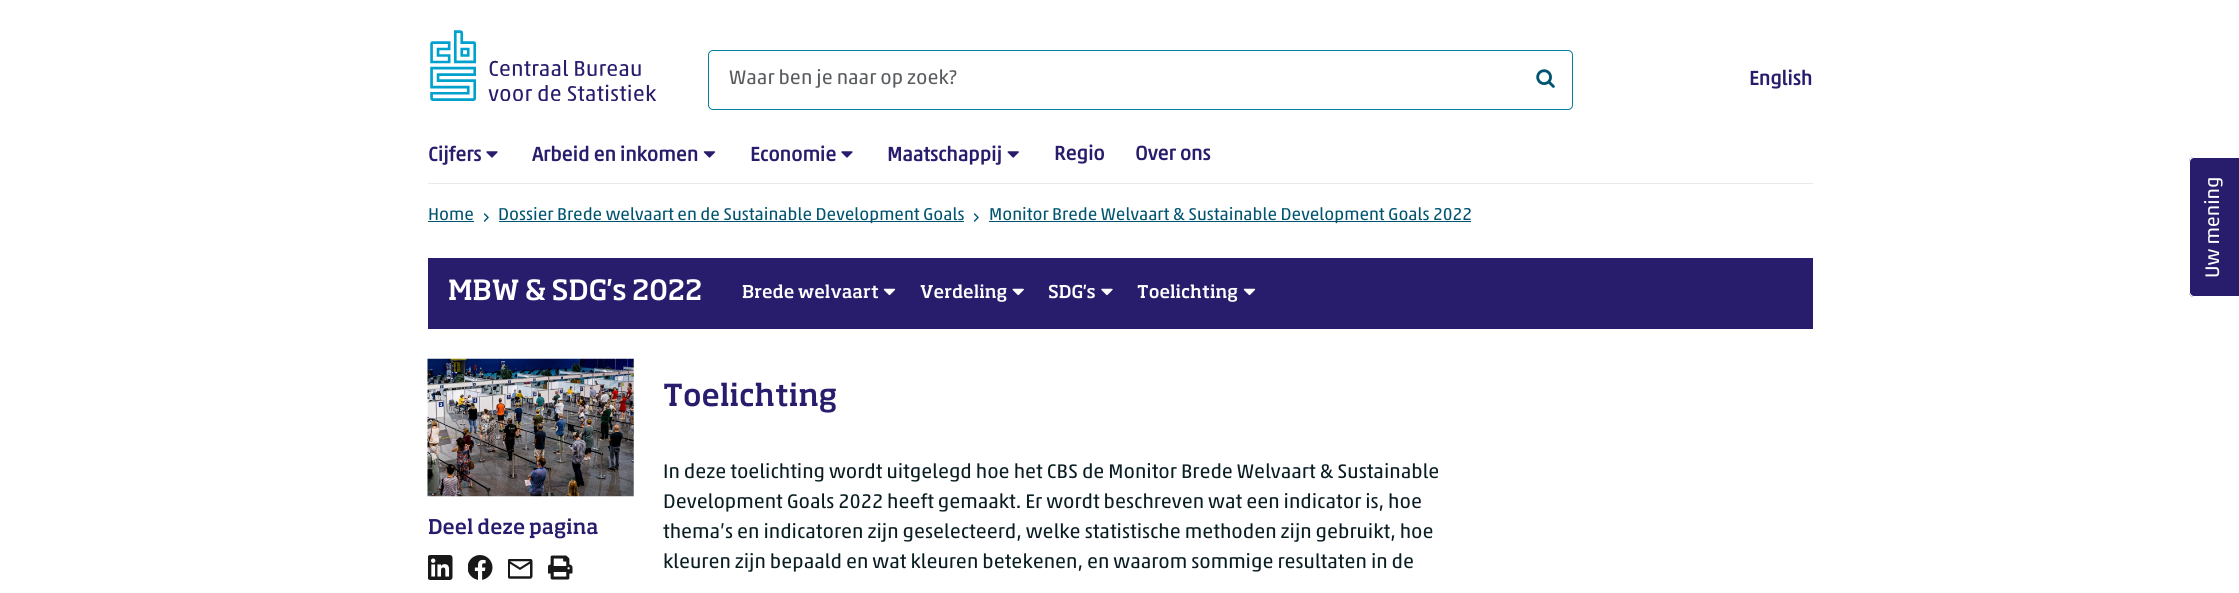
#include <cairo/cairo.h>
#include <math.h>
#include <stddef.h>

typedef struct { double x, y; const char *s; } line_t;
static cairo_t *cr;

static void rgb(unsigned color)
{
	cairo_set_source_rgb(cr, (color >> 16) / 255.0, (color >> 8 & 255) / 255.0, (color & 255) / 255.0);
}

static void rrect(double x, double y, double w, double h, double r)
{
	cairo_new_sub_path(cr);
	cairo_arc(cr, x + w - r, y + h - r, r, 0, M_PI / 2);
	cairo_arc(cr, x + r, y + h - r, r, M_PI / 2, M_PI);
	cairo_arc(cr, x + r, y + r, r, M_PI, 1.5 * M_PI);
	cairo_arc(cr, x + w - r, y + r, r, 1.5 * M_PI, 2 * M_PI);
	cairo_close_path(cr);
}

static void image(const char *path, double x, double y, double w, double h)
{
	cairo_surface_t *image = cairo_image_surface_create_from_png(path);
	cairo_save(cr);
	cairo_set_source_surface(cr, image, x, y);
	cairo_rectangle(cr, x, y, w, h);
	cairo_fill(cr);
	cairo_restore(cr);
	cairo_surface_destroy(image);
}

int main(void) {
	cairo_surface_t *surface = cairo_image_surface_create(CAIRO_FORMAT_RGB24, 2239, 593);
	cr = cairo_create(surface);
	cairo_font_options_t *options = cairo_font_options_create();
	cairo_font_options_set_hint_metrics(options, CAIRO_HINT_METRICS_OFF);
	cairo_font_options_set_hint_style(options, CAIRO_HINT_STYLE_NONE);
	cairo_set_font_options(cr, options);
	cairo_set_miter_limit(cr, 4);
	rgb(0xffffff);
	cairo_paint(cr);
	image("img/1.png", 430, 30, 226, 71);
	rrect(708.5, 50.5, 864, 59, 4.5);
	rgb(0x0580a1);
	cairo_set_line_width(cr, 1);
	cairo_stroke(cr);
	image("img/2.png", 1536, 69, 19, 19);
	image("img/3.png", 486, 151, 12, 7);
	image("img/4.png", 703, 151, 13, 7);
	image("img/3.png", 841, 151, 12, 7);
	image("img/5.png", 1007, 151, 12, 7);
	rgb(0xe9e9e9);
	cairo_rectangle(cr, 428, 183, 1385, 1);
	cairo_fill(cr);
	rgb(0x005470);
	cairo_rectangle(cr, 428, 221, 46, 1);
	cairo_fill(cr);
	image("img/6.png", 484, 213, 5, 9);
	cairo_rectangle(cr, 499, 221, 465, 1);
	cairo_fill(cr);
	image("img/6.png", 974, 213, 5, 9);
	cairo_rectangle(cr, 989, 221, 482, 1);
	cairo_fill(cr);
	rgb(0x271d6c);
	cairo_rectangle(cr, 428, 258, 1385, 71);
	cairo_fill(cr);
	image("img/7.png", 883, 288, 13, 8);
	image("img/8.png", 1012, 288, 12, 8);
	image("img/9.png", 1101, 288, 12, 8);
	image("img/7.png", 1243, 288, 13, 8);
	cairo_new_path(cr);
	cairo_move_to(cr, 2189, 292);
	cairo_line_to(cr, 2189, 162);
	cairo_curve_to(cr, 2189, 159, 2191, 157, 2194, 157);
	cairo_line_to(cr, 2239, 157);
	cairo_line_to(cr, 2239, 297);
	cairo_line_to(cr, 2194, 297);
	cairo_curve_to(cr, 2191, 297, 2189, 295, 2189, 292);
	cairo_close_path(cr);
	cairo_fill(cr);
	rgb(0xffffff);
	cairo_set_fill_rule(cr, CAIRO_FILL_RULE_EVEN_ODD);
	cairo_new_path(cr);
	cairo_move_to(cr, 2189, 292);
	cairo_line_to(cr, 2189, 162);
	cairo_curve_to(cr, 2189, 159, 2191, 157, 2194, 157);
	cairo_line_to(cr, 2239, 157);
	cairo_line_to(cr, 2239, 297);
	cairo_line_to(cr, 2194, 297);
	cairo_curve_to(cr, 2191, 297, 2189, 295, 2189, 292);
	cairo_close_path(cr);
	cairo_move_to(cr, 2190, 292);
	cairo_line_to(cr, 2190, 162);
	cairo_curve_to(cr, 2190, 160, 2192, 158, 2194, 158);
	cairo_line_to(cr, 2239, 158);
	cairo_line_to(cr, 2239, 296);
	cairo_line_to(cr, 2194, 296);
	cairo_curve_to(cr, 2192, 296, 2190, 294, 2190, 292);
	cairo_close_path(cr);
	cairo_fill(cr);
	image("img/10.png", 427, 358, 207, 139);
	image("img/11.png", 428, 555, 25, 25);
	image("img/12.png", 468, 555, 25, 25);
	image("img/13.png", 508, 559, 25, 20);
	image("img/14.png", 548, 555, 25, 25);
	cairo_select_font_face(cr, "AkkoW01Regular", CAIRO_FONT_SLANT_NORMAL, CAIRO_FONT_WEIGHT_NORMAL);
	cairo_set_font_size(cr, 20);
	rgb(0x595c5f);
	cairo_move_to(cr, 729, 84);
	cairo_show_text(cr, "Waar ben je naar op zoek?");
	cairo_select_font_face(cr, "AkkoW01Regular", CAIRO_FONT_SLANT_NORMAL, CAIRO_FONT_WEIGHT_BOLD);
	rgb(0x271d6c);
	{
		static const line_t items[] = {
			{1749, 85, "English"},
			{428, 161, "Cijfers"},
			{532, 161, "Arbeid en inkomen"},
			{750, 161, "Economie"},
			{887, 161, "Maatschappij"},
			{1054, 160, "Regio"},
			{1135, 160, "Over ons"},
		};
		for (size_t i = 0; i < sizeof items / sizeof *items; i++) {
			cairo_move_to(cr, items[i].x, items[i].y);
			cairo_show_text(cr, items[i].s);
		}
	}
	cairo_select_font_face(cr, "AkkoW01Regular", CAIRO_FONT_SLANT_NORMAL, CAIRO_FONT_WEIGHT_NORMAL);
	cairo_set_font_size(cr, 17.4);
	rgb(0x005470);
	{
		static const line_t items[] = {
			{428, 220, "Home"},
			{498, 220, "Dossier Brede welvaart en de Sustainable Development Goals"},
			{989, 220, "Monitor Brede Welvaart & Sustainable Development Goals 2022"},
		};
		for (size_t i = 0; i < sizeof items / sizeof *items; i++) {
			cairo_move_to(cr, items[i].x, items[i].y);
			cairo_show_text(cr, items[i].s);
		}
	}
	cairo_select_font_face(cr, "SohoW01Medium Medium", CAIRO_FONT_SLANT_NORMAL, CAIRO_FONT_WEIGHT_NORMAL);
	cairo_set_font_size(cr, 27.5);
	rgb(0xffffff);
	cairo_move_to(cr, 448, 300);
	cairo_show_text(cr, "MBW & SDG's 2022");
	cairo_set_font_size(cr, 17.4);
	{
		static const line_t items[] = {
			{742, 298, "Brede welvaart"},
			{920, 298, "Verdeling"},
			{1048, 298, "SDG's"},
			{1137, 298, "Toelichting"},
		};
		for (size_t i = 0; i < sizeof items / sizeof *items; i++) {
			cairo_move_to(cr, items[i].x, items[i].y);
			cairo_show_text(cr, items[i].s);
		}
	}
	cairo_select_font_face(cr, "AkkoW01Regular", CAIRO_FONT_SLANT_NORMAL, CAIRO_FONT_WEIGHT_NORMAL);
	cairo_set_font_size(cr, 20);
	cairo_save(cr);
	cairo_translate(cr, 2219, 278);
	cairo_rotate(cr, -90 * M_PI / 180);
	cairo_move_to(cr, 0, 0);
	cairo_show_text(cr, "Uw mening");
	cairo_restore(cr);
	cairo_select_font_face(cr, "SohoW01Medium Medium", CAIRO_FONT_SLANT_NORMAL, CAIRO_FONT_WEIGHT_NORMAL);
	rgb(0x271d6c);
	cairo_move_to(cr, 428, 534);
	cairo_show_text(cr, "Deel deze pagina");
	cairo_set_font_size(cr, 30);
	cairo_move_to(cr, 663, 406);
	cairo_show_text(cr, "Toelichting");
	cairo_select_font_face(cr, "AkkoW01Regular", CAIRO_FONT_SLANT_NORMAL, CAIRO_FONT_WEIGHT_NORMAL);
	cairo_set_font_size(cr, 20);
	rgb(0x091d23);
	{
		static const line_t items[] = {
			{663, 478, "In deze toelichting wordt uitgelegd hoe het CBS de Monitor Brede Welvaart & Sustainable"},
			{663, 508, "Development Goals 2022 heeft gemaakt. Er wordt beschreven wat een indicator is, hoe"},
			{663, 538, "thema’s en indicatoren zijn geselecteerd, welke statistische methoden zijn gebruikt, hoe"},
			{663, 568, "kleuren zijn bepaald en wat kleuren betekenen, en waarom sommige resultaten in de"},
		};
		for (size_t i = 0; i < sizeof items / sizeof *items; i++) {
			cairo_move_to(cr, items[i].x, items[i].y);
			cairo_show_text(cr, items[i].s);
		}
	}
	cairo_surface_write_to_png(surface, "page.png");
	cairo_font_options_destroy(options);
	cairo_destroy(cr);
	cairo_surface_destroy(surface);
	return 0;
}
